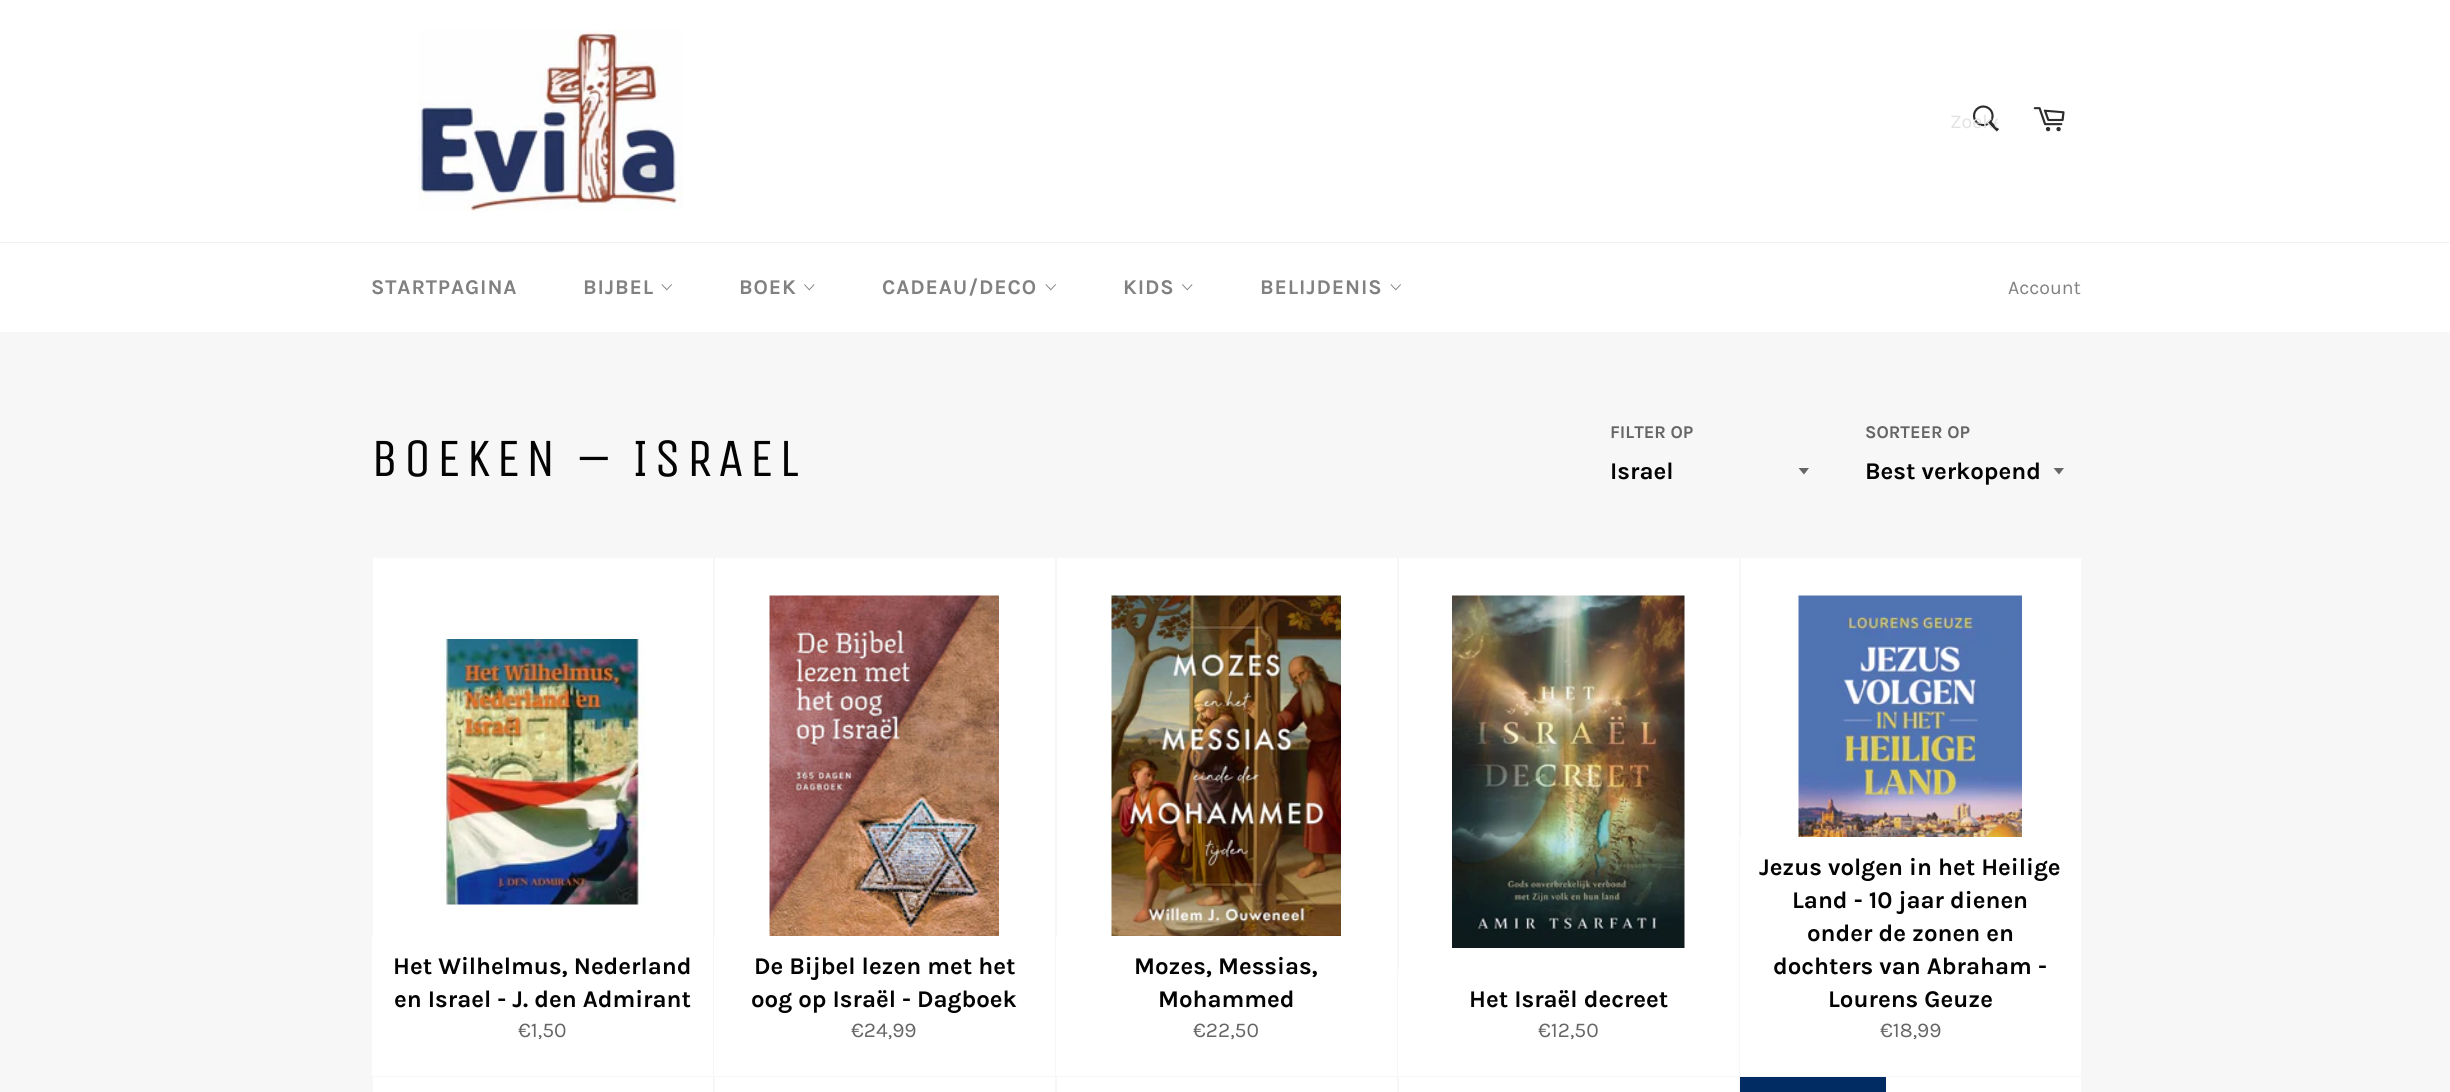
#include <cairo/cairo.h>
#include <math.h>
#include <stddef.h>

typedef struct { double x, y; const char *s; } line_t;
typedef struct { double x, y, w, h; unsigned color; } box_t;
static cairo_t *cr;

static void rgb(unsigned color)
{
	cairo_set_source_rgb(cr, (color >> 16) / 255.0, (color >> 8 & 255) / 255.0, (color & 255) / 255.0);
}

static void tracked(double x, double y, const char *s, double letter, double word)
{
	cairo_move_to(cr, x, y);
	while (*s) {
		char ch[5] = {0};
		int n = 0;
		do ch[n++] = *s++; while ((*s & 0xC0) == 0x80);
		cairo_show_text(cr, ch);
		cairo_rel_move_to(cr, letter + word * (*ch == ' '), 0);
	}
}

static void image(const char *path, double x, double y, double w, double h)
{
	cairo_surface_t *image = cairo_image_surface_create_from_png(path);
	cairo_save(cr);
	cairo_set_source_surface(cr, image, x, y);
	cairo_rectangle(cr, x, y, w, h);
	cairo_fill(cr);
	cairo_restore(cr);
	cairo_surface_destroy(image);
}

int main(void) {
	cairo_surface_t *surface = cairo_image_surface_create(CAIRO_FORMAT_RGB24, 2450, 1092);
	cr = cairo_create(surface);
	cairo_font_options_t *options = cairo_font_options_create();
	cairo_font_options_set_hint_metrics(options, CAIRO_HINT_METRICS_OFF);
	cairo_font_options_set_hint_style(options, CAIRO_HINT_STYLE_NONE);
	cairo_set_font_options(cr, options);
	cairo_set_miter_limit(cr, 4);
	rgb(0xf7f7f7);
	cairo_paint(cr);
	rgb(0xffffff);
	cairo_rectangle(cr, 0, 0, 2450, 242);
	cairo_fill(cr);
	image("img/1.png", 418, 30, 265, 182);
	image("img/2.png", 1972, 105, 27, 27);
	image("img/3.png", 2033, 107, 32, 25);
	rgb(0xf2f2f2);
	cairo_rectangle(cr, 0, 242, 2450, 1);
	cairo_fill(cr);
	rgb(0xffffff);
	cairo_rectangle(cr, 0, 243, 2450, 89);
	cairo_fill(cr);
	image("img/4.png", 661, 284, 11, 7);
	image("img/5.png", 804, 284, 11, 7);
	image("img/4.png", 1045, 284, 11, 7);
	image("img/5.png", 1182, 284, 11, 7);
	image("img/4.png", 1390, 284, 11, 7);
	rgb(0x666666);
	cairo_new_path(cr);
	cairo_move_to(cr, 1798.5, 468);
	cairo_line_to(cr, 1804, 474.5);
	cairo_line_to(cr, 1809, 468);
	cairo_close_path(cr);
	cairo_fill(cr);
	cairo_new_path(cr);
	cairo_move_to(cr, 2053.5, 468);
	cairo_line_to(cr, 2059, 474.5);
	cairo_line_to(cr, 2064, 468);
	cairo_close_path(cr);
	cairo_fill(cr);
	rgb(0xffffff);
	cairo_rectangle(cr, 373, 558, 340, 378);
	cairo_fill(cr);
	image("img/6.png", 439, 639, 207, 266);
	cairo_rectangle(cr, 372, 936, 341, 140);
	cairo_fill(cr);
	cairo_rectangle(cr, 715, 558, 340, 378);
	cairo_fill(cr);
	image("img/7.png", 769, 595, 230, 341);
	cairo_rectangle(cr, 714, 936, 341, 140);
	cairo_fill(cr);
	cairo_rectangle(cr, 1057, 558, 340, 378);
	cairo_fill(cr);
	image("img/8.png", 1111, 595, 230, 341);
	cairo_rectangle(cr, 1056, 936, 341, 140);
	cairo_fill(cr);
	cairo_rectangle(cr, 1399, 558, 340, 411);
	cairo_fill(cr);
	image("img/9.png", 1452, 595, 233, 353);
	cairo_rectangle(cr, 1398, 969, 341, 107);
	cairo_fill(cr);
	cairo_rectangle(cr, 1741, 558, 340, 279);
	cairo_fill(cr);
	image("img/10.png", 1798, 595, 224, 242);
	{
		static const box_t items[] = {
			{1740, 837, 341, 239, 0xffffff},
			{373, 1077, 340, 15, 0xffffff},
			{715, 1077, 340, 15, 0xffffff},
			{1057, 1077, 340, 15, 0xffffff},
			{1399, 1077, 340, 15, 0xffffff},
			{1886, 1077, 195, 15, 0xffffff},
			{1740, 1077, 146, 15, 0x002b63},
		};
		for (size_t i = 0; i < sizeof items / sizeof *items; i++) {
			rgb(items[i].color);
			cairo_rectangle(cr, items[i].x, items[i].y, items[i].w, items[i].h);
			cairo_fill(cr);
		}
	}
	cairo_save(cr);
	cairo_rectangle(cr, 1950, 110, 48, 22);
	cairo_clip(cr);
	cairo_select_font_face(cr, "Karla", CAIRO_FONT_SLANT_NORMAL, CAIRO_FONT_WEIGHT_NORMAL);
	cairo_set_font_size(cr, 19.5);
	rgb(0xe2e2e2);
	cairo_move_to(cr, 1950, 128);
	cairo_show_text(cr, "Zoeke");
	cairo_restore(cr);
	cairo_select_font_face(cr, "Karla", CAIRO_FONT_SLANT_NORMAL, CAIRO_FONT_WEIGHT_BOLD);
	cairo_set_font_size(cr, 21);
	rgb(0x818181);
	{
		static const line_t items[] = {
			{371, 294, "STARTPAGINA"},
			{583, 294, "BIJBEL"},
			{739, 294, "BOEK"},
			{882, 294, "CADEAU/DECO"},
			{1123, 294, "KIDS"},
			{1260, 294, "BELIJDENIS"},
		};
		for (size_t i = 0; i < sizeof items / sizeof *items; i++) {
			tracked(items[i].x, items[i].y, items[i].s, 0.9, 0);
		}
	}
	cairo_select_font_face(cr, "Karla", CAIRO_FONT_SLANT_NORMAL, CAIRO_FONT_WEIGHT_NORMAL);
	cairo_set_font_size(cr, 19.5);
	cairo_move_to(cr, 2008, 294);
	cairo_show_text(cr, "Account");
	cairo_select_font_face(cr, "Unica One", CAIRO_FONT_SLANT_NORMAL, CAIRO_FONT_WEIGHT_NORMAL);
	cairo_set_font_size(cr, 54);
	rgb(0x030303);
	tracked(371, 476, "BOEKEN – ISRAEL", 5.4, 0);
	cairo_select_font_face(cr, "Karla", CAIRO_FONT_SLANT_NORMAL, CAIRO_FONT_WEIGHT_BOLD);
	cairo_set_font_size(cr, 18);
	rgb(0x666666);
	cairo_move_to(cr, 1610, 438);
	cairo_show_text(cr, "FILTER OP");
	cairo_set_font_size(cr, 24);
	rgb(0x030303);
	cairo_move_to(cr, 1610, 479);
	cairo_show_text(cr, "Israel");
	cairo_set_font_size(cr, 18);
	rgb(0x666666);
	cairo_move_to(cr, 1865, 438);
	cairo_show_text(cr, "SORTEER OP");
	cairo_save(cr);
	cairo_rectangle(cr, 1866, 455, 173, 33);
	cairo_clip(cr);
	cairo_set_font_size(cr, 24);
	rgb(0x030303);
	cairo_move_to(cr, 1865, 479);
	cairo_show_text(cr, "Best verkopend");
	cairo_restore(cr);
	cairo_set_font_size(cr, 24);
	rgb(0x030303);
	cairo_move_to(cr, 393, 974);
	cairo_show_text(cr, "Het Wilhelmus, Nederland");
	cairo_move_to(cr, 394, 1007);
	cairo_show_text(cr, "en Israel - J. den Admirant");
	cairo_select_font_face(cr, "Karla", CAIRO_FONT_SLANT_NORMAL, CAIRO_FONT_WEIGHT_NORMAL);
	cairo_set_font_size(cr, 21);
	rgb(0x666666);
	cairo_move_to(cr, 518, 1037);
	cairo_show_text(cr, "€1,50");
	cairo_select_font_face(cr, "Karla", CAIRO_FONT_SLANT_NORMAL, CAIRO_FONT_WEIGHT_BOLD);
	cairo_set_font_size(cr, 24);
	rgb(0x030303);
	cairo_move_to(cr, 754, 974);
	cairo_show_text(cr, "De Bijbel lezen met het");
	cairo_move_to(cr, 751, 1007);
	cairo_show_text(cr, "oog op Israël - Dagboek");
	cairo_select_font_face(cr, "Karla", CAIRO_FONT_SLANT_NORMAL, CAIRO_FONT_WEIGHT_NORMAL);
	cairo_set_font_size(cr, 21);
	rgb(0x666666);
	cairo_move_to(cr, 851, 1037);
	cairo_show_text(cr, "€24,99");
	cairo_select_font_face(cr, "Karla", CAIRO_FONT_SLANT_NORMAL, CAIRO_FONT_WEIGHT_BOLD);
	cairo_set_font_size(cr, 24);
	rgb(0x030303);
	cairo_move_to(cr, 1134, 974);
	cairo_show_text(cr, "Mozes, Messias,");
	cairo_move_to(cr, 1158, 1007);
	cairo_show_text(cr, "Mohammed");
	cairo_select_font_face(cr, "Karla", CAIRO_FONT_SLANT_NORMAL, CAIRO_FONT_WEIGHT_NORMAL);
	cairo_set_font_size(cr, 21);
	rgb(0x666666);
	cairo_move_to(cr, 1193, 1037);
	cairo_show_text(cr, "€22,50");
	cairo_select_font_face(cr, "Karla", CAIRO_FONT_SLANT_NORMAL, CAIRO_FONT_WEIGHT_BOLD);
	cairo_set_font_size(cr, 24);
	rgb(0x030303);
	cairo_move_to(cr, 1469, 1007);
	cairo_show_text(cr, "Het Israël decreet");
	cairo_select_font_face(cr, "Karla", CAIRO_FONT_SLANT_NORMAL, CAIRO_FONT_WEIGHT_NORMAL);
	cairo_set_font_size(cr, 21);
	rgb(0x666666);
	cairo_move_to(cr, 1538, 1037);
	cairo_show_text(cr, "€12,50");
	cairo_select_font_face(cr, "Karla", CAIRO_FONT_SLANT_NORMAL, CAIRO_FONT_WEIGHT_BOLD);
	cairo_set_font_size(cr, 24);
	rgb(0x030303);
	{
		static const line_t items[] = {
			{1759, 875, "Jezus volgen in het Heilige"},
			{1792, 908, "Land - 10 jaar dienen"},
			{1807, 941, "onder de zonen en"},
			{1773, 974, "dochters van Abraham -"},
			{1828, 1007, "Lourens Geuze"},
		};
		for (size_t i = 0; i < sizeof items / sizeof *items; i++) {
			cairo_move_to(cr, items[i].x, items[i].y);
			cairo_show_text(cr, items[i].s);
		}
	}
	cairo_select_font_face(cr, "Karla", CAIRO_FONT_SLANT_NORMAL, CAIRO_FONT_WEIGHT_NORMAL);
	cairo_set_font_size(cr, 21);
	rgb(0x666666);
	cairo_move_to(cr, 1880, 1037);
	cairo_show_text(cr, "€18,99");
	cairo_surface_write_to_png(surface, "page.png");
	cairo_font_options_destroy(options);
	cairo_destroy(cr);
	cairo_surface_destroy(surface);
	return 0;
}
